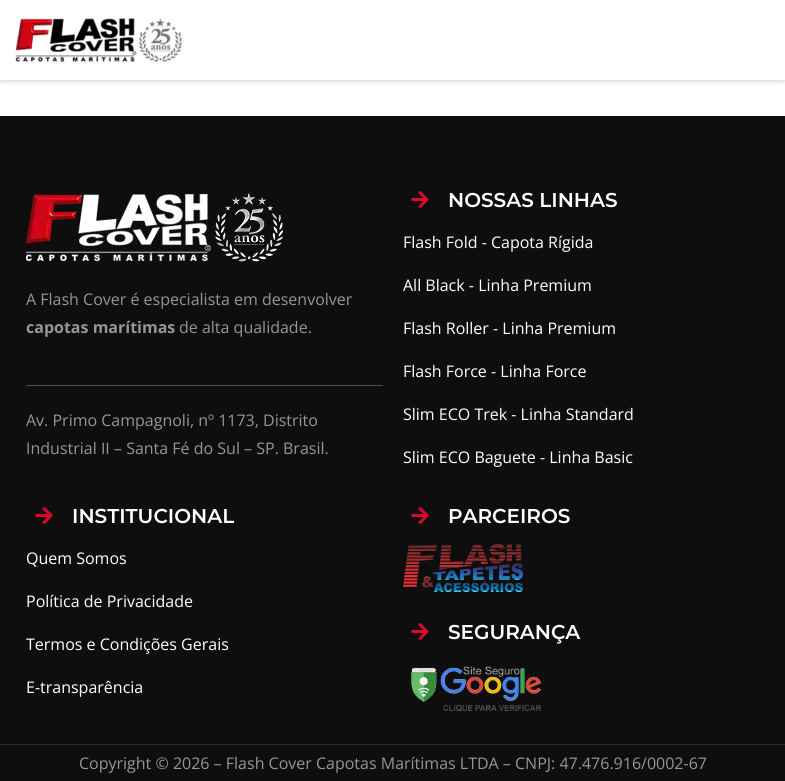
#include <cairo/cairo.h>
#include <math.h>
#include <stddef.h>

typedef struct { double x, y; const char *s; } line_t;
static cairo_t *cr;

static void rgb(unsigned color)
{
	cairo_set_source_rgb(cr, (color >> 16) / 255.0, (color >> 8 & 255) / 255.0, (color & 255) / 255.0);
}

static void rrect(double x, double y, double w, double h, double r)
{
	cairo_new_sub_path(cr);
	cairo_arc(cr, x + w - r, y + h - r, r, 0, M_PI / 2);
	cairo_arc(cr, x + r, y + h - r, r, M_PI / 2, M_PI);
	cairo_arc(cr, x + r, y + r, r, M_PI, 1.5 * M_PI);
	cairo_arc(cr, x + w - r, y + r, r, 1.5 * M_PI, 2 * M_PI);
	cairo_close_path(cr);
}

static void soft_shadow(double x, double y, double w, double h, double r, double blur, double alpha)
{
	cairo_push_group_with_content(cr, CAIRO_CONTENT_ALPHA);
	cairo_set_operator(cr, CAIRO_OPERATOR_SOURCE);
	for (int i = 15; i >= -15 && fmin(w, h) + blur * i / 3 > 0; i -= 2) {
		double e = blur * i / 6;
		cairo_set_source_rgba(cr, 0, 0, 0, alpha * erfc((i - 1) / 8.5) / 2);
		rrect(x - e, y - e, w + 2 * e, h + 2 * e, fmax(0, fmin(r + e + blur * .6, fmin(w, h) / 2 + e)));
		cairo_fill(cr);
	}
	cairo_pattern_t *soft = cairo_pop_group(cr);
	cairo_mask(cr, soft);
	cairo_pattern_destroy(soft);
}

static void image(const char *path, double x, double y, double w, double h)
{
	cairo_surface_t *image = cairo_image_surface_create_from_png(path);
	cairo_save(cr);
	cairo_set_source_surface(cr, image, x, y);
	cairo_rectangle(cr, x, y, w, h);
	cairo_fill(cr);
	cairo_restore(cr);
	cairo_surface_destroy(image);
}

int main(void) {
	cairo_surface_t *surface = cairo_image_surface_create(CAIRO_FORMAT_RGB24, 785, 781);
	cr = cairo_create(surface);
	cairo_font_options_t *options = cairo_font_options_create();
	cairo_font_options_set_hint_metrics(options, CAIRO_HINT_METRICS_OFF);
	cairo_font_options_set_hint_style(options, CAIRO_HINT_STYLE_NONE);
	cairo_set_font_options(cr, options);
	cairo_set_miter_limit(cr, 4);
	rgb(0xffffff);
	cairo_paint(cr);
	rgb(0x000000);
	soft_shadow(0, 0, 785, 80, 0, 3, 0.25);
	rgb(0xffffff);
	cairo_rectangle(cr, 0, 0, 785, 80);
	cairo_fill(cr);
	image("img/1.png", 15, 18, 167, 44);
	rgb(0x0e0e0e);
	cairo_rectangle(cr, 0, 116, 785, 628);
	cairo_fill(cr);
	image("img/2.png", 26, 193, 257, 69);
	rgb(0x4e4e4e);
	cairo_rectangle(cr, 26, 385, 357, 1);
	cairo_fill(cr);
	image("img/3.png", 411, 191, 18, 17);
	image("img/3.png", 35, 507, 18, 17);
	image("img/3.png", 411, 507, 18, 17);
	image("img/4.png", 403, 544, 120, 48);
	image("img/3.png", 411, 623, 18, 17);
	image("img/5.png", 411, 666, 131, 46);
	rgb(0x0e0e0e);
	cairo_rectangle(cr, 0, 745, 785, 36);
	cairo_fill(cr);
	rgb(0x2f2f2f);
	cairo_rectangle(cr, 0, 744, 785, 1);
	cairo_fill(cr);
	cairo_select_font_face(cr, "Open Sans", CAIRO_FONT_SLANT_NORMAL, CAIRO_FONT_WEIGHT_NORMAL);
	cairo_set_font_size(cr, 16);
	rgb(0x969696);
	cairo_move_to(cr, 26, 305);
	cairo_show_text(cr, "A Flash Cover é especialista em desenvolver");
	cairo_select_font_face(cr, "Open Sans", CAIRO_FONT_SLANT_NORMAL, CAIRO_FONT_WEIGHT_BOLD);
	cairo_move_to(cr, 26, 333);
	cairo_show_text(cr, "capotas marítimas");
	cairo_select_font_face(cr, "Open Sans", CAIRO_FONT_SLANT_NORMAL, CAIRO_FONT_WEIGHT_NORMAL);
	{
		static const line_t items[] = {
			{179, 333, "de alta qualidade."},
			{26, 426, "Av. Primo Campagnoli, nº 1173, Distrito"},
			{26, 454, "Industrial II – Santa Fé do Sul – SP. Brasil."},
		};
		for (size_t i = 0; i < sizeof items / sizeof *items; i++) {
			cairo_move_to(cr, items[i].x, items[i].y);
			cairo_show_text(cr, items[i].s);
		}
	}
	cairo_select_font_face(cr, "Montserrat SemiBold", CAIRO_FONT_SLANT_NORMAL, CAIRO_FONT_WEIGHT_NORMAL);
	cairo_set_font_size(cr, 20);
	rgb(0xffffff);
	cairo_move_to(cr, 448, 207);
	cairo_show_text(cr, "NOSSAS LINHAS");
	cairo_select_font_face(cr, "Open Sans", CAIRO_FONT_SLANT_NORMAL, CAIRO_FONT_WEIGHT_NORMAL);
	cairo_set_font_size(cr, 16);
	{
		static const line_t items[] = {
			{403, 248, "Flash Fold - Capota Rígida"},
			{403, 291, "All Black - Linha Premium"},
			{403, 334, "Flash Roller - Linha Premium"},
			{403, 377, "Flash Force - Linha Force"},
			{403, 420, "Slim ECO Trek - Linha Standard"},
			{403, 463, "Slim ECO Baguete - Linha Basic"},
		};
		for (size_t i = 0; i < sizeof items / sizeof *items; i++) {
			cairo_move_to(cr, items[i].x, items[i].y);
			cairo_show_text(cr, items[i].s);
		}
	}
	cairo_select_font_face(cr, "Montserrat SemiBold", CAIRO_FONT_SLANT_NORMAL, CAIRO_FONT_WEIGHT_NORMAL);
	cairo_set_font_size(cr, 20);
	cairo_move_to(cr, 72, 523);
	cairo_show_text(cr, "INSTITUCIONAL");
	cairo_select_font_face(cr, "Open Sans", CAIRO_FONT_SLANT_NORMAL, CAIRO_FONT_WEIGHT_NORMAL);
	cairo_set_font_size(cr, 16);
	{
		static const line_t items[] = {
			{26, 564, "Quem Somos"},
			{26, 607, "Política de Privacidade"},
			{26, 650, "Termos e Condições Gerais"},
			{26, 693, "E-transparência"},
		};
		for (size_t i = 0; i < sizeof items / sizeof *items; i++) {
			cairo_move_to(cr, items[i].x, items[i].y);
			cairo_show_text(cr, items[i].s);
		}
	}
	cairo_select_font_face(cr, "Montserrat SemiBold", CAIRO_FONT_SLANT_NORMAL, CAIRO_FONT_WEIGHT_NORMAL);
	cairo_set_font_size(cr, 20);
	cairo_move_to(cr, 448, 523);
	cairo_show_text(cr, "PARCEIROS");
	cairo_move_to(cr, 448, 639);
	cairo_show_text(cr, "SEGURANÇA");
	cairo_select_font_face(cr, "Open Sans", CAIRO_FONT_SLANT_NORMAL, CAIRO_FONT_WEIGHT_NORMAL);
	cairo_set_font_size(cr, 16);
	rgb(0x969696);
	cairo_move_to(cr, 79, 769);
	cairo_show_text(cr, "Copyright © 2026 – Flash Cover Capotas Marítimas LTDA – CNPJ: 47.476.916/0002-67");
	cairo_surface_write_to_png(surface, "page.png");
	cairo_font_options_destroy(options);
	cairo_destroy(cr);
	cairo_surface_destroy(surface);
	return 0;
}
